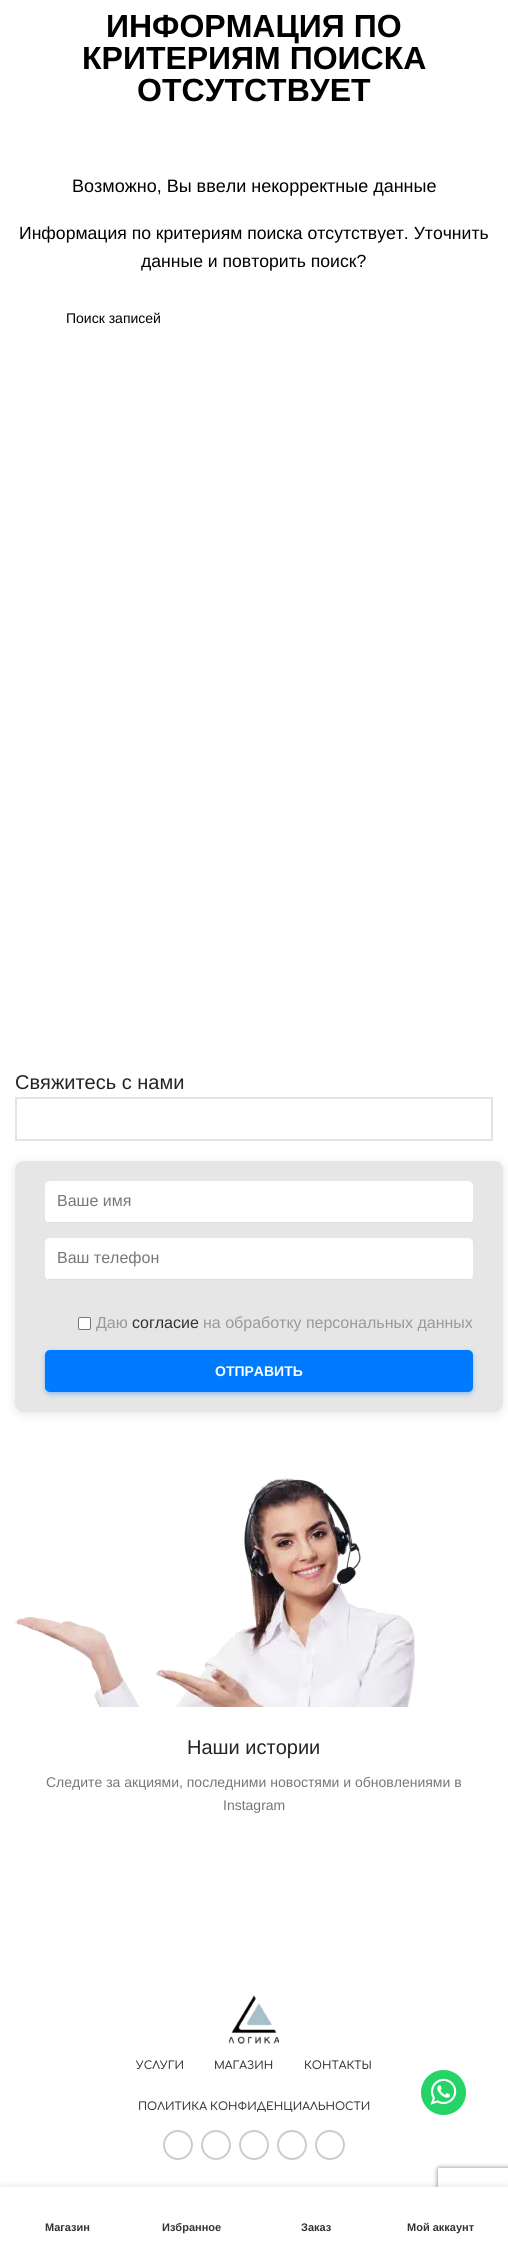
#include <cairo/cairo.h>
#include <math.h>
#include <stddef.h>

typedef struct { double x, y; const char *s; } line_t;
static cairo_t *cr;

static void rgb(unsigned color)
{
	cairo_set_source_rgb(cr, (color >> 16) / 255.0, (color >> 8 & 255) / 255.0, (color & 255) / 255.0);
}

static void rrect(double x, double y, double w, double h, double r)
{
	cairo_new_sub_path(cr);
	cairo_arc(cr, x + w - r, y + h - r, r, 0, M_PI / 2);
	cairo_arc(cr, x + r, y + h - r, r, M_PI / 2, M_PI);
	cairo_arc(cr, x + r, y + r, r, M_PI, 1.5 * M_PI);
	cairo_arc(cr, x + w - r, y + r, r, 1.5 * M_PI, 2 * M_PI);
	cairo_close_path(cr);
}

static void soft_shadow(double x, double y, double w, double h, double r, double blur, double alpha)
{
	cairo_push_group_with_content(cr, CAIRO_CONTENT_ALPHA);
	cairo_set_operator(cr, CAIRO_OPERATOR_SOURCE);
	for (int i = 15; i >= -15 && fmin(w, h) + blur * i / 3 > 0; i -= 2) {
		double e = blur * i / 6;
		cairo_set_source_rgba(cr, 0, 0, 0, alpha * erfc((i - 1) / 8.5) / 2);
		rrect(x - e, y - e, w + 2 * e, h + 2 * e, fmax(0, fmin(r + e + blur * .6, fmin(w, h) / 2 + e)));
		cairo_fill(cr);
	}
	cairo_pattern_t *soft = cairo_pop_group(cr);
	cairo_mask(cr, soft);
	cairo_pattern_destroy(soft);
}

static void image(const char *path, double x, double y, double w, double h)
{
	cairo_surface_t *image = cairo_image_surface_create_from_png(path);
	cairo_save(cr);
	cairo_set_source_surface(cr, image, x, y);
	cairo_rectangle(cr, x, y, w, h);
	cairo_fill(cr);
	cairo_restore(cr);
	cairo_surface_destroy(image);
}

int main(void) {
	cairo_surface_t *surface = cairo_image_surface_create(CAIRO_FORMAT_RGB24, 508, 2242);
	cr = cairo_create(surface);
	cairo_font_options_t *options = cairo_font_options_create();
	cairo_font_options_set_hint_metrics(options, CAIRO_HINT_METRICS_OFF);
	cairo_font_options_set_hint_style(options, CAIRO_HINT_STYLE_NONE);
	cairo_set_font_options(cr, options);
	cairo_set_miter_limit(cr, 4);
	rgb(0xffffff);
	cairo_paint(cr);
	cairo_rectangle(cr, 16, 1098, 476, 42);
	rgb(0xe4e4e4);
	cairo_stroke(cr);
	cairo_save(cr);
	cairo_set_fill_rule(cr, CAIRO_FILL_RULE_EVEN_ODD);
	cairo_new_path(cr);
	cairo_move_to(cr, 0, 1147);
	cairo_line_to(cr, 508, 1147);
	cairo_line_to(cr, 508, 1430);
	cairo_line_to(cr, 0, 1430);
	cairo_close_path(cr);
	cairo_move_to(cr, 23, 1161);
	cairo_line_to(cr, 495, 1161);
	cairo_curve_to(cr, 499.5, 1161, 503, 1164.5, 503, 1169);
	cairo_line_to(cr, 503, 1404);
	cairo_curve_to(cr, 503, 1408.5, 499.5, 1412, 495, 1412);
	cairo_line_to(cr, 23, 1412);
	cairo_curve_to(cr, 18.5, 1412, 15, 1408.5, 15, 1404);
	cairo_line_to(cr, 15, 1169);
	cairo_curve_to(cr, 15, 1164.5, 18.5, 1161, 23, 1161);
	cairo_close_path(cr);
	cairo_clip(cr);
	rgb(0x000000);
	soft_shadow(15, 1163, 488, 251, 8, 5, 0.1);
	cairo_restore(cr);
	cairo_set_source_rgba(cr, 0.89, 0.89, 0.89, 0.86);
	rrect(15, 1161, 488, 251, 8);
	cairo_fill(cr);
	rgb(0xffffff);
	rrect(45, 1181, 428, 42, 5);
	cairo_fill(cr);
	rgb(0xdddddd);
	cairo_rectangle(cr, 48, 1222, 423, 1);
	cairo_fill(cr);
	rgb(0xffffff);
	rrect(45, 1238, 428, 42, 5);
	cairo_fill(cr);
	rgb(0xdddddd);
	cairo_rectangle(cr, 48, 1279, 423, 1);
	cairo_fill(cr);
	rgb(0xffffff);
	rrect(78.5, 1317.5, 12, 12, 1.5);
	cairo_fill_preserve(cr);
	rgb(0x767676);
	cairo_set_line_width(cr, 1);
	cairo_stroke(cr);
	rgb(0x007bff);
	soft_shadow(45, 1352, 428, 42, 5, 2.5, 0.4);
	rgb(0x007bff);
	rrect(45, 1350, 428, 42, 5);
	cairo_fill(cr);
	image("img/1.png", 15, 1478, 400, 229);
	image("img/2.png", 229, 1995, 50, 49);
	cairo_arc(cr, 178, 2145, 14, 0, 2 * M_PI);
	rgb(0xcccccc);
	cairo_set_line_width(cr, 2);
	cairo_stroke(cr);
	cairo_arc(cr, 216, 2145, 14, 0, 2 * M_PI);
	cairo_stroke(cr);
	cairo_arc(cr, 254, 2145, 14, 0, 2 * M_PI);
	cairo_stroke(cr);
	cairo_arc(cr, 292, 2145, 14, 0, 2 * M_PI);
	cairo_stroke(cr);
	cairo_arc(cr, 330, 2145, 14, 0, 2 * M_PI);
	cairo_stroke(cr);
	rgb(0x25d366);
	cairo_arc(cr, 443.5, 2092.5, 22.5, 0, 2 * M_PI);
	cairo_fill(cr);
	image("img/3.png", 430, 2078, 27, 27);
	cairo_save(cr);
	cairo_set_fill_rule(cr, CAIRO_FILL_RULE_EVEN_ODD);
	cairo_new_path(cr);
	cairo_move_to(cr, 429, 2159);
	cairo_line_to(cr, 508, 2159);
	cairo_line_to(cr, 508, 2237);
	cairo_line_to(cr, 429, 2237);
	cairo_close_path(cr);
	cairo_move_to(cr, 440, 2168);
	cairo_line_to(cr, 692, 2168);
	cairo_curve_to(cr, 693, 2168, 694, 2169, 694, 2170);
	cairo_line_to(cr, 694, 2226);
	cairo_curve_to(cr, 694, 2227, 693, 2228, 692, 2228);
	cairo_line_to(cr, 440, 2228);
	cairo_curve_to(cr, 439, 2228, 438, 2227, 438, 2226);
	cairo_line_to(cr, 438, 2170);
	cairo_curve_to(cr, 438, 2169, 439, 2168, 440, 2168);
	cairo_close_path(cr);
	cairo_clip(cr);
	rgb(0x808080);
	soft_shadow(438, 2168, 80, 60, 2, 2.5, 1);
	cairo_restore(cr);
	rgb(0x000000);
	soft_shadow(0, 2187, 508, 55, 0, 4.5, 0.12);
	rgb(0xffffff);
	cairo_rectangle(cr, 0, 2187, 508, 55);
	cairo_fill(cr);
	cairo_select_font_face(cr, "Liberation Sans", CAIRO_FONT_SLANT_NORMAL, CAIRO_FONT_WEIGHT_BOLD);
	cairo_set_font_size(cr, 32);
	rgb(0x000000);
	{
		static const line_t items[] = {
			{106, 37, "ИНФОРМАЦИЯ ПО"},
			{82, 69, "КРИТЕРИЯМ ПОИСКА"},
			{137, 101, "ОТСУТСТВУЕТ"},
		};
		for (size_t i = 0; i < sizeof items / sizeof *items; i++) {
			cairo_move_to(cr, items[i].x, items[i].y);
			cairo_show_text(cr, items[i].s);
		}
	}
	cairo_select_font_face(cr, "Liberation Sans", CAIRO_FONT_SLANT_NORMAL, CAIRO_FONT_WEIGHT_NORMAL);
	cairo_set_font_size(cr, 18);
	cairo_move_to(cr, 72, 192);
	cairo_show_text(cr, "Возможно, Вы ввели некорректные данные");
	cairo_set_font_size(cr, 17.6);
	cairo_move_to(cr, 19, 239);
	cairo_show_text(cr, "Информация по критериям поиска отсутствует. Уточнить");
	cairo_move_to(cr, 141, 267);
	cairo_show_text(cr, "данные и повторить поиск?");
	cairo_set_font_size(cr, 14);
	cairo_move_to(cr, 66, 323);
	cairo_show_text(cr, "Поиск записей");
	cairo_set_font_size(cr, 20);
	rgb(0x242424);
	cairo_move_to(cr, 15, 1089);
	cairo_show_text(cr, "Свяжитесь с нами");
	cairo_set_font_size(cr, 16);
	rgb(0x777777);
	cairo_move_to(cr, 57, 1206);
	cairo_show_text(cr, "Ваше имя");
	cairo_move_to(cr, 57, 1263);
	cairo_show_text(cr, "Ваш телефон");
	rgb(0x999999);
	cairo_move_to(cr, 96, 1328);
	cairo_show_text(cr, "Даю");
	rgb(0x333333);
	cairo_move_to(cr, 132, 1328);
	cairo_show_text(cr, "согласие");
	rgb(0x999999);
	cairo_move_to(cr, 203, 1328);
	cairo_show_text(cr, "на обработку персональных данных");
	cairo_select_font_face(cr, "Liberation Sans", CAIRO_FONT_SLANT_NORMAL, CAIRO_FONT_WEIGHT_BOLD);
	cairo_set_font_size(cr, 14);
	rgb(0xffffff);
	cairo_move_to(cr, 215, 1376);
	cairo_show_text(cr, "ОТПРАВИТЬ");
	cairo_select_font_face(cr, "Liberation Sans", CAIRO_FONT_SLANT_NORMAL, CAIRO_FONT_WEIGHT_NORMAL);
	cairo_set_font_size(cr, 20);
	rgb(0x242424);
	cairo_move_to(cr, 187, 1754);
	cairo_show_text(cr, "Наши истории");
	cairo_set_font_size(cr, 14);
	rgb(0x777777);
	cairo_move_to(cr, 46, 1787);
	cairo_show_text(cr, "Следите за акциями, последними новостями и обновлениями в");
	cairo_move_to(cr, 223, 1810);
	cairo_show_text(cr, "Instagram");
	cairo_select_font_face(cr, "Comfortaa SemiBold", CAIRO_FONT_SLANT_NORMAL, CAIRO_FONT_WEIGHT_NORMAL);
	cairo_set_font_size(cr, 11);
	rgb(0x333333);
	{
		static const line_t items[] = {
			{136, 2069, "УСЛУГИ"},
			{214, 2069, "МАГАЗИН"},
			{304, 2069, "КОНТАКТЫ"},
			{138, 2110, "ПОЛИТИКА КОНФИДЕНЦИАЛЬНОСТИ"},
		};
		for (size_t i = 0; i < sizeof items / sizeof *items; i++) {
			cairo_move_to(cr, items[i].x, items[i].y);
			cairo_show_text(cr, items[i].s);
		}
	}
	cairo_select_font_face(cr, "Liberation Sans", CAIRO_FONT_SLANT_NORMAL, CAIRO_FONT_WEIGHT_BOLD);
	{
		static const line_t items[] = {
			{45, 2231, "Магазин"},
			{162, 2231, "Избранное"},
			{301, 2231, "Заказ"},
			{407, 2231, "Мой аккаунт"},
		};
		for (size_t i = 0; i < sizeof items / sizeof *items; i++) {
			cairo_move_to(cr, items[i].x, items[i].y);
			cairo_show_text(cr, items[i].s);
		}
	}
	cairo_surface_write_to_png(surface, "page.png");
	cairo_font_options_destroy(options);
	cairo_destroy(cr);
	cairo_surface_destroy(surface);
	return 0;
}
